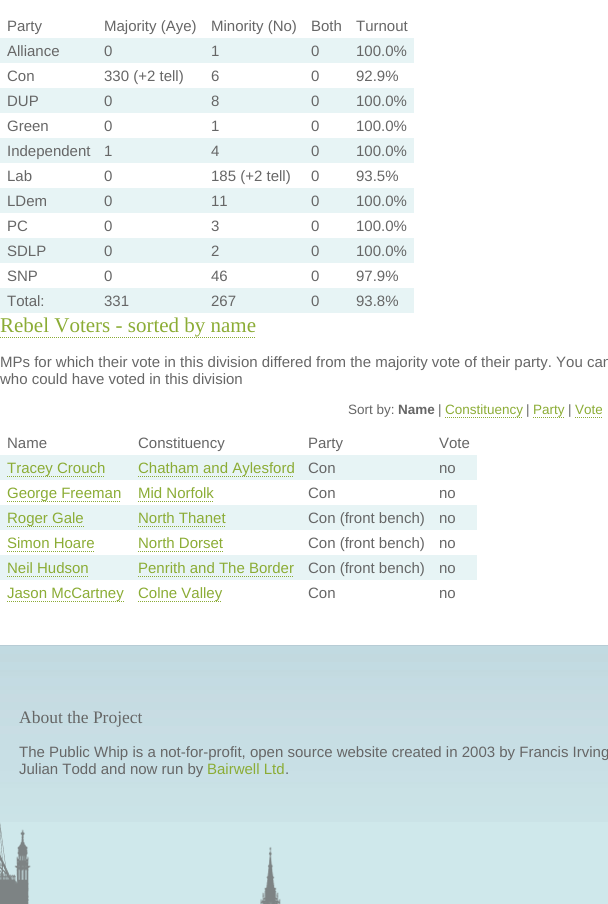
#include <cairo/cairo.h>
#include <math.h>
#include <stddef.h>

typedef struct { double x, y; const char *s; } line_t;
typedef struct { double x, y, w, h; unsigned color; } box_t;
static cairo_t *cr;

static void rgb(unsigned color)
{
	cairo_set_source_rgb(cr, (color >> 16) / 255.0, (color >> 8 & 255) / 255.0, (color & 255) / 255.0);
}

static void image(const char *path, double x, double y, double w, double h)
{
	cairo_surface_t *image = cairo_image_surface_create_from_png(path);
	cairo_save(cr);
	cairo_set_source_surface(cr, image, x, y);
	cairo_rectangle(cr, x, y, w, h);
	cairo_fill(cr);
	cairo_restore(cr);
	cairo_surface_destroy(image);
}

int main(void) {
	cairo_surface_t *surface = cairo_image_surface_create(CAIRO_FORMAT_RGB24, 608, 904);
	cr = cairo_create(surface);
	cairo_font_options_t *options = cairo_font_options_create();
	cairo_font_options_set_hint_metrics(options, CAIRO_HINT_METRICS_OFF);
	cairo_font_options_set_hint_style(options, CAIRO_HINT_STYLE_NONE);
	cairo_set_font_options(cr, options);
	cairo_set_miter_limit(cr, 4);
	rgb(0xffffff);
	cairo_paint(cr);
	{
		static const box_t items[] = {
			{0, 38, 414, 25, 0xe7f4f5},
			{0, 88, 414, 25, 0xe7f4f5},
			{0, 138, 414, 25, 0xe7f4f5},
			{0, 188, 414, 25, 0xe7f4f5},
			{0, 238, 414, 25, 0xe7f4f5},
			{0, 288, 414, 25, 0xe7f4f5},
		};
		for (size_t i = 0; i < sizeof items / sizeof *items; i++) {
			rgb(items[i].color);
			cairo_rectangle(cr, items[i].x, items[i].y, items[i].w, items[i].h);
			cairo_fill(cr);
		}
	}
	cairo_new_path(cr);
	cairo_move_to(cr, 0, 337.5);
	cairo_line_to(cr, 256, 337.5);
	rgb(0x8bac35);
	cairo_set_line_width(cr, 1);
	cairo_set_dash(cr, (double[]){1, 1}, 2, 0);
	cairo_stroke(cr);
	cairo_new_path(cr);
	cairo_move_to(cr, 445, 417.5);
	cairo_line_to(cr, 522, 417.5);
	cairo_stroke(cr);
	cairo_new_path(cr);
	cairo_move_to(cr, 533, 417.5);
	cairo_line_to(cr, 564, 417.5);
	cairo_stroke(cr);
	cairo_new_path(cr);
	cairo_move_to(cr, 575, 417.5);
	cairo_line_to(cr, 603, 417.5);
	cairo_stroke(cr);
	rgb(0xe7f4f5);
	cairo_rectangle(cr, 0, 455, 477, 25);
	cairo_fill(cr);
	cairo_new_path(cr);
	cairo_move_to(cr, 7, 476.5);
	cairo_line_to(cr, 105, 476.5);
	rgb(0x8bac35);
	cairo_stroke(cr);
	cairo_new_path(cr);
	cairo_move_to(cr, 138, 476.5);
	cairo_line_to(cr, 294, 476.5);
	cairo_stroke(cr);
	cairo_new_path(cr);
	cairo_move_to(cr, 7, 501.5);
	cairo_line_to(cr, 121, 501.5);
	cairo_stroke(cr);
	cairo_new_path(cr);
	cairo_move_to(cr, 138, 501.5);
	cairo_line_to(cr, 214, 501.5);
	cairo_stroke(cr);
	rgb(0xe7f4f5);
	cairo_rectangle(cr, 0, 505, 477, 25);
	cairo_fill(cr);
	cairo_new_path(cr);
	cairo_move_to(cr, 7, 526.5);
	cairo_line_to(cr, 84, 526.5);
	rgb(0x8bac35);
	cairo_stroke(cr);
	cairo_new_path(cr);
	cairo_move_to(cr, 138, 526.5);
	cairo_line_to(cr, 225, 526.5);
	cairo_stroke(cr);
	cairo_new_path(cr);
	cairo_move_to(cr, 7, 551.5);
	cairo_line_to(cr, 95, 551.5);
	cairo_stroke(cr);
	cairo_new_path(cr);
	cairo_move_to(cr, 138, 551.5);
	cairo_line_to(cr, 223, 551.5);
	cairo_stroke(cr);
	rgb(0xe7f4f5);
	cairo_rectangle(cr, 0, 555, 477, 25);
	cairo_fill(cr);
	cairo_new_path(cr);
	cairo_move_to(cr, 7, 576.5);
	cairo_line_to(cr, 89, 576.5);
	rgb(0x8bac35);
	cairo_stroke(cr);
	cairo_new_path(cr);
	cairo_move_to(cr, 138, 576.5);
	cairo_line_to(cr, 294, 576.5);
	cairo_stroke(cr);
	cairo_new_path(cr);
	cairo_move_to(cr, 7, 601.5);
	cairo_line_to(cr, 124, 601.5);
	cairo_stroke(cr);
	cairo_new_path(cr);
	cairo_move_to(cr, 138, 601.5);
	cairo_line_to(cr, 222, 601.5);
	cairo_stroke(cr);
	rgb(0xcfe8eb);
	cairo_rectangle(cr, 0, 822, 608, 82);
	cairo_fill(cr);
	image("img/1.png", 0, 646, 608, 176);
	rgb(0xb7ccd5);
	cairo_rectangle(cr, 0, 645, 608, 1);
	cairo_fill(cr);
	image("img/2.png", 0, 822, 281, 82);
	cairo_select_font_face(cr, "Liberation Sans", CAIRO_FONT_SLANT_NORMAL, CAIRO_FONT_WEIGHT_NORMAL);
	cairo_set_font_size(cr, 15);
	rgb(0x666666);
	{
		static const line_t items[] = {
			{7, 31, "Party"},
			{104, 31, "Majority (Aye)"},
			{211, 31, "Minority (No)"},
			{311, 31, "Both"},
			{356, 31, "Turnout"},
			{7, 56, "Alliance"},
			{104, 56, "0"},
			{211, 56, "1"},
			{311, 56, "0"},
			{356, 56, "100.0%"},
			{7, 81, "Con"},
			{104, 81, "330 (+2 tell)"},
			{211, 81, "6"},
			{311, 81, "0"},
			{356, 81, "92.9%"},
			{7, 106, "DUP"},
			{104, 106, "0"},
			{211, 106, "8"},
			{311, 106, "0"},
			{356, 106, "100.0%"},
			{7, 131, "Green"},
			{104, 131, "0"},
			{211, 131, "1"},
			{311, 131, "0"},
			{356, 131, "100.0%"},
			{7, 156, "Independent"},
			{104, 156, "1"},
			{211, 156, "4"},
			{311, 156, "0"},
			{356, 156, "100.0%"},
			{7, 181, "Lab"},
			{104, 181, "0"},
			{211, 181, "185 (+2 tell)"},
			{311, 181, "0"},
			{356, 181, "93.5%"},
			{7, 206, "LDem"},
			{104, 206, "0"},
			{211, 206, "11"},
			{311, 206, "0"},
			{356, 206, "100.0%"},
			{7, 231, "PC"},
			{104, 231, "0"},
			{211, 231, "3"},
			{311, 231, "0"},
			{356, 231, "100.0%"},
			{7, 256, "SDLP"},
			{104, 256, "0"},
			{211, 256, "2"},
			{311, 256, "0"},
			{356, 256, "100.0%"},
			{7, 281, "SNP"},
			{104, 281, "0"},
			{211, 281, "46"},
			{311, 281, "0"},
			{356, 281, "97.9%"},
			{7, 306, "Total:"},
			{104, 306, "331"},
			{211, 306, "267"},
			{311, 306, "0"},
			{356, 306, "93.8%"},
		};
		for (size_t i = 0; i < sizeof items / sizeof *items; i++) {
			cairo_move_to(cr, items[i].x, items[i].y);
			cairo_show_text(cr, items[i].s);
		}
	}
	cairo_select_font_face(cr, "Liberation Serif", CAIRO_FONT_SLANT_NORMAL, CAIRO_FONT_WEIGHT_NORMAL);
	cairo_set_font_size(cr, 21);
	rgb(0x8bac35);
	cairo_move_to(cr, 0, 332);
	cairo_show_text(cr, "Rebel Voters - sorted by name");
	cairo_select_font_face(cr, "Liberation Sans", CAIRO_FONT_SLANT_NORMAL, CAIRO_FONT_WEIGHT_NORMAL);
	cairo_set_font_size(cr, 15);
	rgb(0x666666);
	cairo_move_to(cr, 0, 367);
	cairo_show_text(cr, "MPs for which their vote in this division differed from the majority vote of their party. You can");
	cairo_move_to(cr, 0, 384);
	cairo_show_text(cr, "who could have voted in this division");
	cairo_set_font_size(cr, 13.5);
	cairo_move_to(cr, 348, 414);
	cairo_show_text(cr, "Sort by:");
	cairo_select_font_face(cr, "Liberation Sans", CAIRO_FONT_SLANT_NORMAL, CAIRO_FONT_WEIGHT_BOLD);
	cairo_move_to(cr, 398, 414);
	cairo_show_text(cr, "Name");
	cairo_select_font_face(cr, "Liberation Sans", CAIRO_FONT_SLANT_NORMAL, CAIRO_FONT_WEIGHT_NORMAL);
	cairo_move_to(cr, 438, 414);
	cairo_show_text(cr, "|");
	rgb(0x8bac35);
	cairo_move_to(cr, 445, 414);
	cairo_show_text(cr, "Constituency");
	rgb(0x666666);
	cairo_move_to(cr, 526, 414);
	cairo_show_text(cr, "|");
	rgb(0x8bac35);
	cairo_move_to(cr, 533, 414);
	cairo_show_text(cr, "Party");
	rgb(0x666666);
	cairo_move_to(cr, 568, 414);
	cairo_show_text(cr, "|");
	rgb(0x8bac35);
	cairo_move_to(cr, 575, 414);
	cairo_show_text(cr, "Vote");
	cairo_set_font_size(cr, 15);
	rgb(0x666666);
	{
		static const line_t items[] = {
			{7, 448, "Name"},
			{138, 448, "Constituency"},
			{308, 448, "Party"},
			{439, 448, "Vote"},
		};
		for (size_t i = 0; i < sizeof items / sizeof *items; i++) {
			cairo_move_to(cr, items[i].x, items[i].y);
			cairo_show_text(cr, items[i].s);
		}
	}
	rgb(0x8bac35);
	cairo_move_to(cr, 7, 473);
	cairo_show_text(cr, "Tracey Crouch");
	cairo_move_to(cr, 138, 473);
	cairo_show_text(cr, "Chatham and Aylesford");
	rgb(0x666666);
	cairo_move_to(cr, 308, 473);
	cairo_show_text(cr, "Con");
	cairo_move_to(cr, 439, 473);
	cairo_show_text(cr, "no");
	rgb(0x8bac35);
	cairo_move_to(cr, 7, 498);
	cairo_show_text(cr, "George Freeman");
	cairo_move_to(cr, 138, 498);
	cairo_show_text(cr, "Mid Norfolk");
	rgb(0x666666);
	cairo_move_to(cr, 308, 498);
	cairo_show_text(cr, "Con");
	cairo_move_to(cr, 439, 498);
	cairo_show_text(cr, "no");
	rgb(0x8bac35);
	cairo_move_to(cr, 7, 523);
	cairo_show_text(cr, "Roger Gale");
	cairo_move_to(cr, 138, 523);
	cairo_show_text(cr, "North Thanet");
	rgb(0x666666);
	cairo_move_to(cr, 308, 523);
	cairo_show_text(cr, "Con (front bench)");
	cairo_move_to(cr, 439, 523);
	cairo_show_text(cr, "no");
	rgb(0x8bac35);
	cairo_move_to(cr, 7, 548);
	cairo_show_text(cr, "Simon Hoare");
	cairo_move_to(cr, 138, 548);
	cairo_show_text(cr, "North Dorset");
	rgb(0x666666);
	cairo_move_to(cr, 308, 548);
	cairo_show_text(cr, "Con (front bench)");
	cairo_move_to(cr, 439, 548);
	cairo_show_text(cr, "no");
	rgb(0x8bac35);
	cairo_move_to(cr, 7, 573);
	cairo_show_text(cr, "Neil Hudson");
	cairo_move_to(cr, 138, 573);
	cairo_show_text(cr, "Penrith and The Border");
	rgb(0x666666);
	cairo_move_to(cr, 308, 573);
	cairo_show_text(cr, "Con (front bench)");
	cairo_move_to(cr, 439, 573);
	cairo_show_text(cr, "no");
	rgb(0x8bac35);
	cairo_move_to(cr, 7, 598);
	cairo_show_text(cr, "Jason McCartney");
	cairo_move_to(cr, 138, 598);
	cairo_show_text(cr, "Colne Valley");
	rgb(0x666666);
	cairo_move_to(cr, 308, 598);
	cairo_show_text(cr, "Con");
	cairo_move_to(cr, 439, 598);
	cairo_show_text(cr, "no");
	cairo_select_font_face(cr, "Liberation Serif", CAIRO_FONT_SLANT_NORMAL, CAIRO_FONT_WEIGHT_NORMAL);
	cairo_set_font_size(cr, 17.5);
	cairo_move_to(cr, 19, 723);
	cairo_show_text(cr, "About the Project");
	cairo_select_font_face(cr, "Liberation Sans", CAIRO_FONT_SLANT_NORMAL, CAIRO_FONT_WEIGHT_NORMAL);
	cairo_set_font_size(cr, 15);
	cairo_move_to(cr, 19, 757);
	cairo_show_text(cr, "The Public Whip is a not-for-profit, open source website created in 2003 by Francis Irving");
	cairo_move_to(cr, 19, 774);
	cairo_show_text(cr, "Julian Todd and now run by");
	rgb(0x8bac35);
	cairo_move_to(cr, 207, 774);
	cairo_show_text(cr, "Bairwell Ltd");
	rgb(0x666666);
	cairo_move_to(cr, 285, 774);
	cairo_show_text(cr, ".");
	cairo_surface_write_to_png(surface, "page.png");
	cairo_font_options_destroy(options);
	cairo_destroy(cr);
	cairo_surface_destroy(surface);
	return 0;
}
